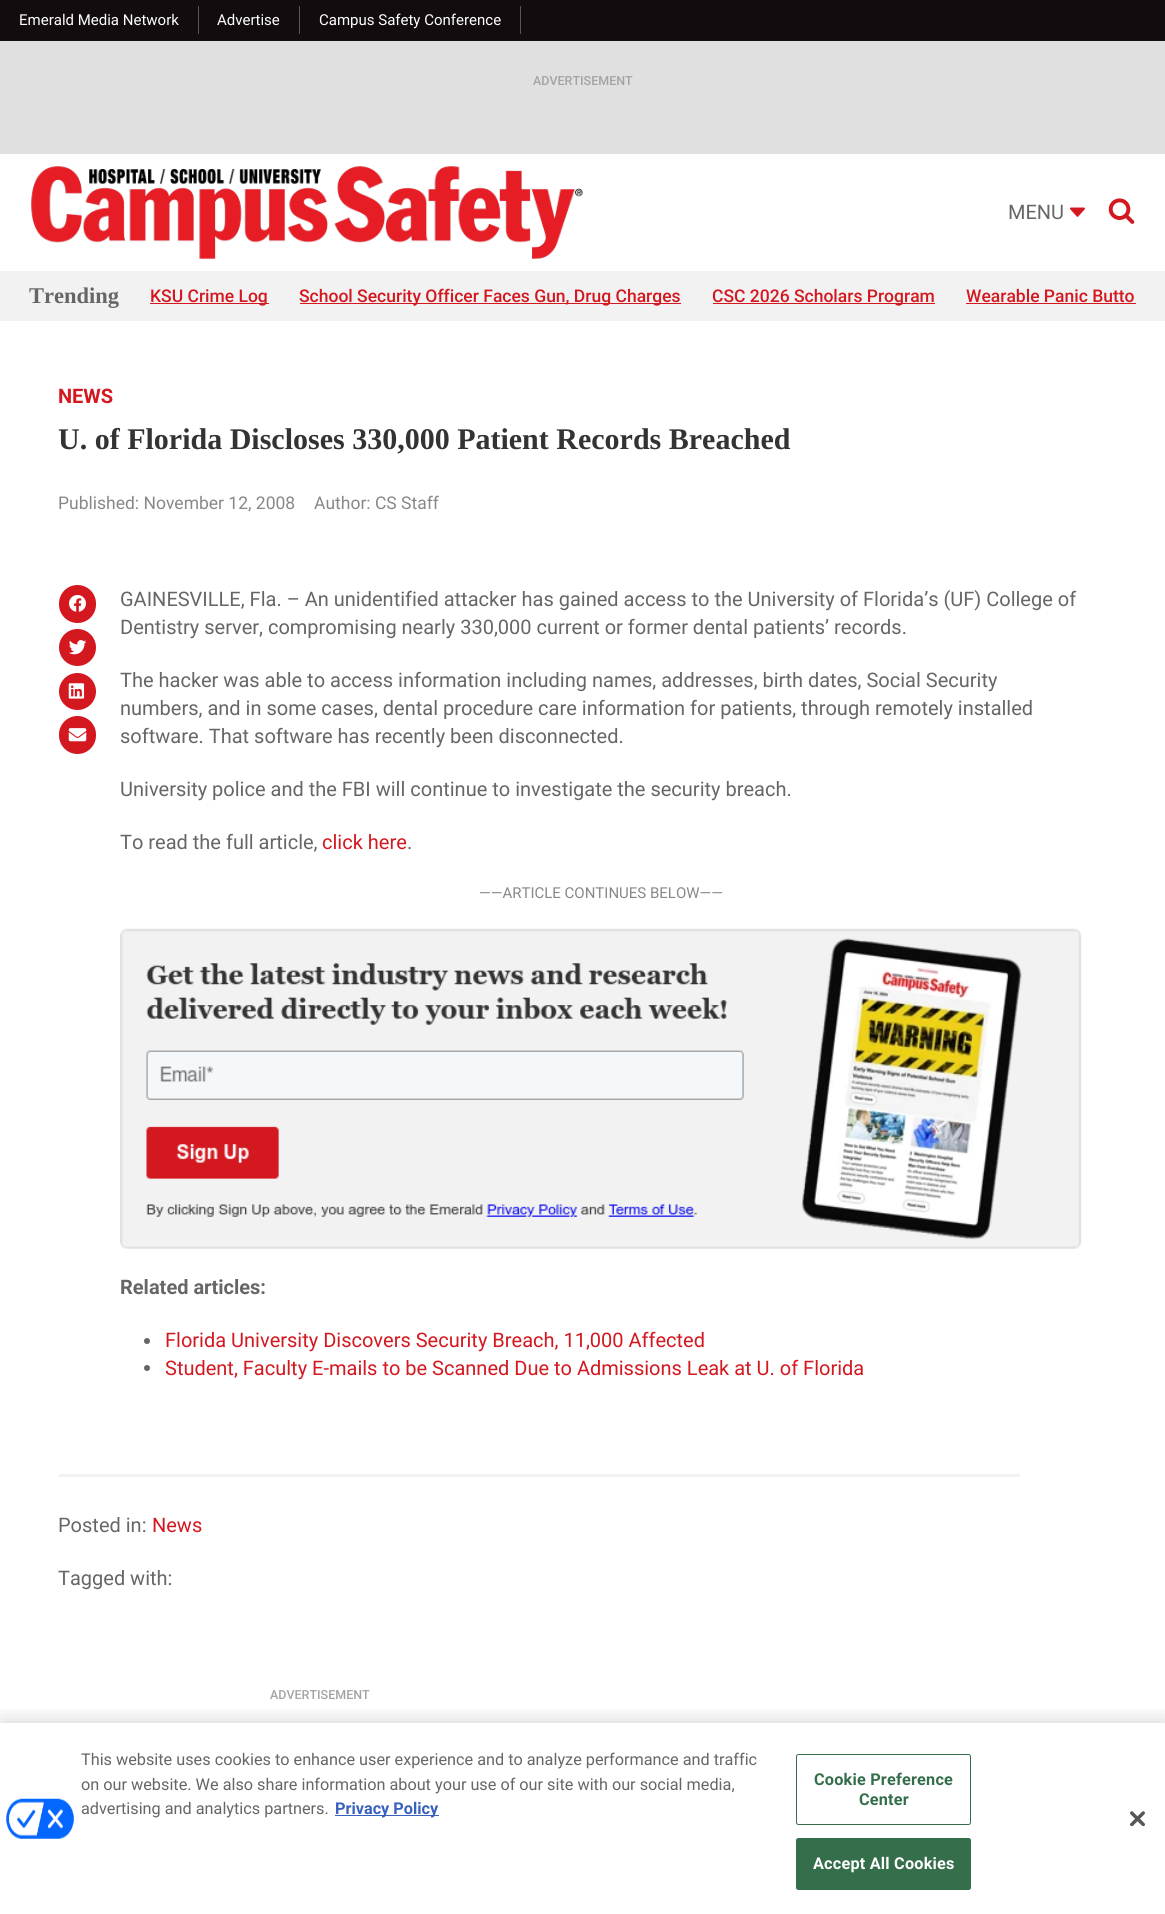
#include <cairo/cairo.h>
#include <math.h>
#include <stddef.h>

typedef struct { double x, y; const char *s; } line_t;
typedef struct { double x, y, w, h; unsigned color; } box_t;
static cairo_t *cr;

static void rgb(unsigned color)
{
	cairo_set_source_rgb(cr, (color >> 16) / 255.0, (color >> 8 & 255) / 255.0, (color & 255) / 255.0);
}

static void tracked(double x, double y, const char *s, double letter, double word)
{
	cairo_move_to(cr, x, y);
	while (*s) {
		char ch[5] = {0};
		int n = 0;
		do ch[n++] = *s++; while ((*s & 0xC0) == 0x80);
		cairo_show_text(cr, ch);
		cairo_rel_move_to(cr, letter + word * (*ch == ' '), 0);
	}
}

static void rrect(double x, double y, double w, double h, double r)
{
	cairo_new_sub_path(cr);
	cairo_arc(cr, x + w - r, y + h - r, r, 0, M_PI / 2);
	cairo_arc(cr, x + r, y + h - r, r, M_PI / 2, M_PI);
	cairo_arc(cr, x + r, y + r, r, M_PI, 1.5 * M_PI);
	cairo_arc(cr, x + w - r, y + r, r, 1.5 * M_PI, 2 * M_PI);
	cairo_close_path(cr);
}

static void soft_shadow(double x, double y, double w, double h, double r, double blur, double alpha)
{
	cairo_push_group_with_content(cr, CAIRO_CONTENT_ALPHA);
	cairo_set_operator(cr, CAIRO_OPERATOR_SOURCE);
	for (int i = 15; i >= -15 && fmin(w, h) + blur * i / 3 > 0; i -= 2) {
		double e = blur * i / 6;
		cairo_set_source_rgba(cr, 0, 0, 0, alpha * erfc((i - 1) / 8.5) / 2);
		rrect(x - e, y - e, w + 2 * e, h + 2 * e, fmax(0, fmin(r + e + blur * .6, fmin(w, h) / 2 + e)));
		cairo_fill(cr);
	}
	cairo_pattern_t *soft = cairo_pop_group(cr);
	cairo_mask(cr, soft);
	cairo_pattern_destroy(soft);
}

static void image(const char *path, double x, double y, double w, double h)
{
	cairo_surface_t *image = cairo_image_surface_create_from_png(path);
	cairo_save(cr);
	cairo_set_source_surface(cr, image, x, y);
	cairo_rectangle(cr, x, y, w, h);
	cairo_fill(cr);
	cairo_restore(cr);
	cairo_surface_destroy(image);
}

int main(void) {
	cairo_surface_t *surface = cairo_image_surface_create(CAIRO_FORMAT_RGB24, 1165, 1914);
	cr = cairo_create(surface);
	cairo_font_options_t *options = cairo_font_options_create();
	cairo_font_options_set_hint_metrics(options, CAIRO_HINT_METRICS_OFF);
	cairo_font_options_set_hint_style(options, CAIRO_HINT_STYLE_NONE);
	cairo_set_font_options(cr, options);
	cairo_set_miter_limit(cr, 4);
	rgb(0xffffff);
	cairo_paint(cr);
	{
		static const box_t items[] = {
			{0, 0, 1165, 41, 0x130c0e},
			{198, 6, 1, 28, 0x5a5556},
			{299, 6, 1, 28, 0x5a5556},
			{520, 6, 1, 28, 0x5a5556},
			{0, 41, 1165, 113, 0xe0e0e0},
		};
		for (size_t i = 0; i < sizeof items / sizeof *items; i++) {
			rgb(items[i].color);
			cairo_rectangle(cr, items[i].x, items[i].y, items[i].w, items[i].h);
			cairo_fill(cr);
		}
	}
	image("img/1.png", 31, 166, 552, 93);
	image("img/2.png", 1070, 207, 15, 10);
	image("img/3.png", 1108, 198, 27, 26);
	{
		static const box_t items[] = {
			{0, 271, 1165, 50, 0xf2f2f2},
			{150, 303, 119, 1, 0xd31820},
			{300, 303, 381, 1, 0xd31820},
			{713, 303, 222, 1, 0xd31820},
			{966, 303, 170, 1, 0xd31820},
		};
		for (size_t i = 0; i < sizeof items / sizeof *items; i++) {
			rgb(items[i].color);
			cairo_rectangle(cr, items[i].x, items[i].y, items[i].w, items[i].h);
			cairo_fill(cr);
		}
	}
	rrect(59, 585, 37, 38, 18.5);
	cairo_fill(cr);
	image("img/4.png", 69, 595, 17, 17);
	cairo_arc(cr, 77.5, 647.5, 18.5, 0, 2 * M_PI);
	cairo_fill(cr);
	image("img/5.png", 69, 640, 18, 15);
	cairo_arc(cr, 77.5, 691.5, 18.5, 0, 2 * M_PI);
	cairo_fill(cr);
	image("img/6.png", 68, 683, 17, 16);
	rrect(59, 716, 37, 38, 18.5);
	cairo_fill(cr);
	image("img/7.png", 68, 728, 19, 14);
	image("img/8.png", 120, 928, 962, 321);
	rgb(0x666666);
	cairo_arc(cr, 147, 1341, 3, 0, 2 * M_PI);
	cairo_fill(cr);
	cairo_arc(cr, 147, 1368, 3, 0, 2 * M_PI);
	cairo_fill(cr);
	rgb(0xf2f2f2);
	cairo_rectangle(cr, 59, 1474, 961, 3);
	cairo_fill(cr);
	cairo_save(cr);
	cairo_rectangle(cr, 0, 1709, 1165, 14);
	cairo_clip(cr);
	rgb(0x000000);
	soft_shadow(0, 1723, 1165, 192, 0, 11, 0.2);
	cairo_restore(cr);
	image("img/9.png", 6, 1798, 68, 41);
	rgb(0x3860be);
	cairo_rectangle(cr, 335, 1815, 104, 1);
	cairo_fill(cr);
	rrect(796.5, 1754.5, 174, 70, 2);
	rgb(0x346e4a);
	cairo_set_line_width(cr, 1);
	cairo_stroke(cr);
	rrect(796.5, 1838.5, 174, 51, 2);
	cairo_fill_preserve(cr);
	cairo_stroke(cr);
	image("img/10.png", 1130, 1811, 15, 15);
	cairo_select_font_face(cr, "Roboto", CAIRO_FONT_SLANT_NORMAL, CAIRO_FONT_WEIGHT_NORMAL);
	cairo_set_font_size(cr, 15);
	rgb(0xffffff);
	{
		static const line_t items[] = {
			{19, 25, "Emerald Media Network"},
			{217, 25, "Advertise"},
			{319, 25, "Campus Safety Conference"},
		};
		for (size_t i = 0; i < sizeof items / sizeof *items; i++) {
			cairo_move_to(cr, items[i].x, items[i].y);
			cairo_show_text(cr, items[i].s);
		}
	}
	cairo_select_font_face(cr, "Roboto Medium", CAIRO_FONT_SLANT_NORMAL, CAIRO_FONT_WEIGHT_NORMAL);
	cairo_set_font_size(cr, 12.5);
	rgb(0xa3a3a3);
	cairo_move_to(cr, 533, 85);
	cairo_show_text(cr, "ADVERTISEMENT");
	cairo_select_font_face(cr, "Roboto", CAIRO_FONT_SLANT_NORMAL, CAIRO_FONT_WEIGHT_NORMAL);
	cairo_set_font_size(cr, 20);
	rgb(0x666666);
	cairo_move_to(cr, 1008, 219);
	cairo_show_text(cr, "MENU");
	cairo_select_font_face(cr, "Liberation Serif", CAIRO_FONT_SLANT_NORMAL, CAIRO_FONT_WEIGHT_BOLD);
	cairo_set_font_size(cr, 22.5);
	cairo_move_to(cr, 29, 303);
	cairo_show_text(cr, "Trending");
	cairo_select_font_face(cr, "Roboto Medium", CAIRO_FONT_SLANT_NORMAL, CAIRO_FONT_WEIGHT_NORMAL);
	cairo_set_font_size(cr, 17.5);
	rgb(0xd31820);
	{
		static const line_t items[] = {
			{150, 302, "KSU Crime Log"},
			{299, 302, "School Security Officer Faces Gun, Drug Charges"},
			{712, 302, "CSC 2026 Scholars Program"},
			{966, 302, "Wearable Panic Butto"},
		};
		for (size_t i = 0; i < sizeof items / sizeof *items; i++) {
			cairo_move_to(cr, items[i].x, items[i].y);
			cairo_show_text(cr, items[i].s);
		}
	}
	cairo_select_font_face(cr, "Roboto", CAIRO_FONT_SLANT_NORMAL, CAIRO_FONT_WEIGHT_BOLD);
	cairo_set_font_size(cr, 20);
	cairo_move_to(cr, 58, 403);
	cairo_show_text(cr, "NEWS");
	cairo_select_font_face(cr, "Liberation Serif", CAIRO_FONT_SLANT_NORMAL, CAIRO_FONT_WEIGHT_BOLD);
	cairo_set_font_size(cr, 30);
	rgb(0x333333);
	cairo_move_to(cr, 58, 449);
	cairo_show_text(cr, "U. of Florida Discloses 330,000 Patient Records Breached");
	cairo_select_font_face(cr, "Roboto", CAIRO_FONT_SLANT_NORMAL, CAIRO_FONT_WEIGHT_NORMAL);
	cairo_set_font_size(cr, 17.5);
	rgb(0x888888);
	cairo_move_to(cr, 58, 509);
	cairo_show_text(cr, "Published: November 12, 2008");
	cairo_move_to(cr, 314, 509);
	cairo_show_text(cr, "Author: CS Staff");
	cairo_set_font_size(cr, 20);
	rgb(0x666666);
	{
		static const line_t items[] = {
			{120, 606, "GAINESVILLE, Fla. – An unidentified attacker has gained access to the University of Florida’s (UF) College of"},
			{120, 634, "Dentistry server, compromising nearly 330,000 current or former dental patients’ records."},
			{120, 687, "The hacker was able to access information including names, addresses, birth dates, Social Security"},
			{120, 715, "numbers, and in some cases, dental procedure care information for patients, through remotely installed"},
			{120, 743, "software. That software has recently been disconnected."},
			{120, 796, "University police and the FBI will continue to investigate the security breach."},
			{120, 849, "To read the full article,"},
		};
		for (size_t i = 0; i < sizeof items / sizeof *items; i++) {
			cairo_move_to(cr, items[i].x, items[i].y);
			cairo_show_text(cr, items[i].s);
		}
	}
	rgb(0xd31820);
	cairo_move_to(cr, 322, 849);
	cairo_show_text(cr, "click here");
	rgb(0x666666);
	cairo_move_to(cr, 407, 849);
	cairo_show_text(cr, ".");
	cairo_set_font_size(cr, 15);
	rgb(0x888888);
	cairo_move_to(cr, 479, 898);
	cairo_show_text(cr, "——ARTICLE CONTINUES BELOW——");
	cairo_select_font_face(cr, "Roboto", CAIRO_FONT_SLANT_NORMAL, CAIRO_FONT_WEIGHT_BOLD);
	cairo_set_font_size(cr, 20);
	rgb(0x666666);
	cairo_move_to(cr, 120, 1294);
	cairo_show_text(cr, "Related articles:");
	cairo_select_font_face(cr, "Roboto", CAIRO_FONT_SLANT_NORMAL, CAIRO_FONT_WEIGHT_NORMAL);
	rgb(0xd31820);
	cairo_move_to(cr, 165, 1347);
	cairo_show_text(cr, "Florida University Discovers Security Breach, 11,000 Affected");
	cairo_move_to(cr, 165, 1375);
	cairo_show_text(cr, "Student, Faculty E-mails to be Scanned Due to Admissions Leak at U. of Florida");
	rgb(0x666666);
	cairo_move_to(cr, 58, 1532);
	cairo_show_text(cr, "Posted in:");
	rgb(0xd31820);
	cairo_move_to(cr, 152, 1532);
	cairo_show_text(cr, "News");
	rgb(0x666666);
	cairo_move_to(cr, 58, 1585);
	cairo_show_text(cr, "Tagged with:");
	cairo_select_font_face(cr, "Roboto Medium", CAIRO_FONT_SLANT_NORMAL, CAIRO_FONT_WEIGHT_NORMAL);
	cairo_set_font_size(cr, 12.5);
	rgb(0xa3a3a3);
	cairo_move_to(cr, 270, 1699);
	cairo_show_text(cr, "ADVERTISEMENT");
	cairo_select_font_face(cr, "Roboto", CAIRO_FONT_SLANT_NORMAL, CAIRO_FONT_WEIGHT_NORMAL);
	cairo_set_font_size(cr, 16.25);
	rgb(0x666666);
	{
		static const line_t items[] = {
			{81, 1765, "This website uses cookies to enhance user experience and to analyze performance and traffic"},
			{81, 1790, "on our website. We also share information about your use of our site with our social media,"},
			{81, 1814, "advertising and analytics partners."},
		};
		for (size_t i = 0; i < sizeof items / sizeof *items; i++) {
			cairo_move_to(cr, items[i].x, items[i].y);
			cairo_show_text(cr, items[i].s);
		}
	}
	cairo_select_font_face(cr, "Roboto", CAIRO_FONT_SLANT_NORMAL, CAIRO_FONT_WEIGHT_BOLD);
	rgb(0x3860be);
	cairo_move_to(cr, 335, 1814);
	cairo_show_text(cr, "Privacy Policy");
	rgb(0x346e4a);
	tracked(814, 1785, "Cookie Preference", 0.2, 0);
	tracked(859, 1805, "Center", 0.2, 0);
	rgb(0xffffff);
	tracked(813, 1869, "Accept All Cookies", 0.2, 0);
	cairo_surface_write_to_png(surface, "page.png");
	cairo_font_options_destroy(options);
	cairo_destroy(cr);
	cairo_surface_destroy(surface);
	return 0;
}
